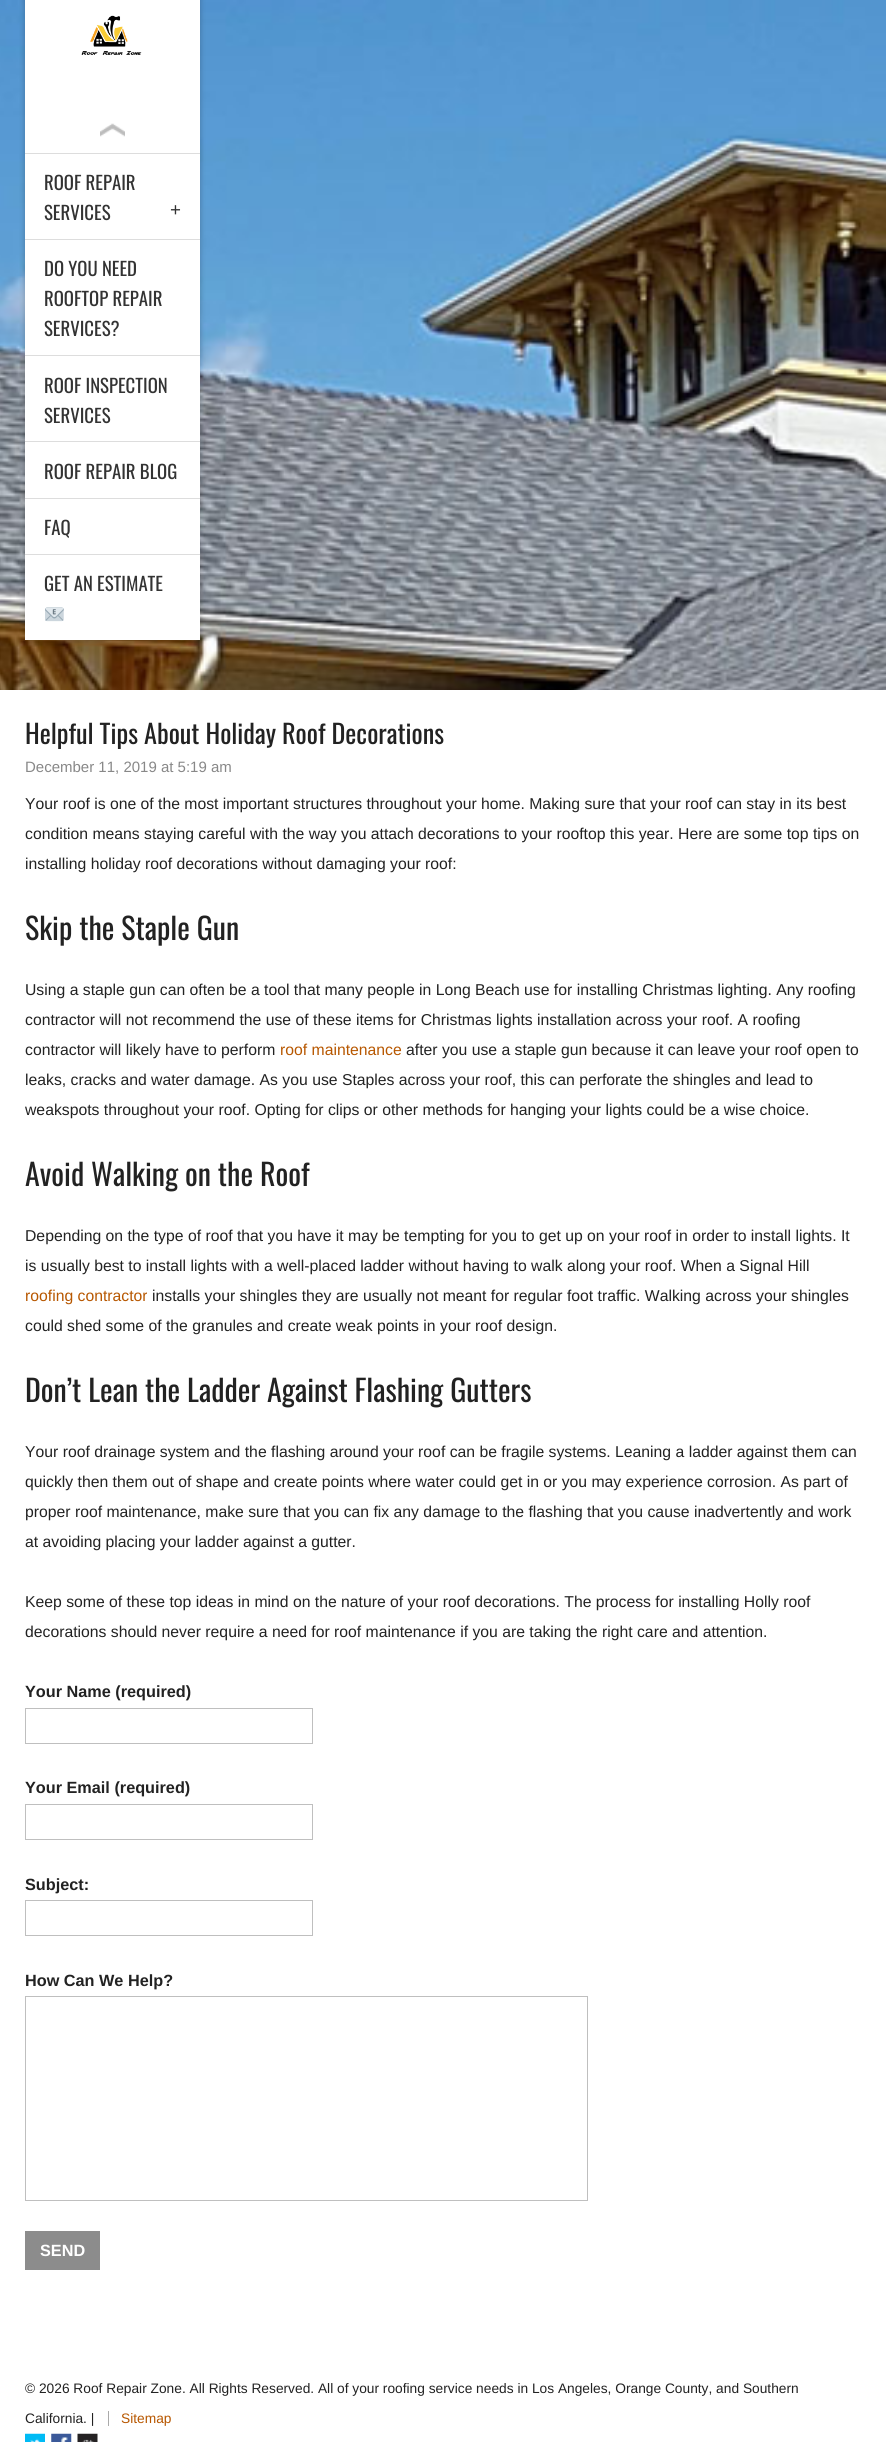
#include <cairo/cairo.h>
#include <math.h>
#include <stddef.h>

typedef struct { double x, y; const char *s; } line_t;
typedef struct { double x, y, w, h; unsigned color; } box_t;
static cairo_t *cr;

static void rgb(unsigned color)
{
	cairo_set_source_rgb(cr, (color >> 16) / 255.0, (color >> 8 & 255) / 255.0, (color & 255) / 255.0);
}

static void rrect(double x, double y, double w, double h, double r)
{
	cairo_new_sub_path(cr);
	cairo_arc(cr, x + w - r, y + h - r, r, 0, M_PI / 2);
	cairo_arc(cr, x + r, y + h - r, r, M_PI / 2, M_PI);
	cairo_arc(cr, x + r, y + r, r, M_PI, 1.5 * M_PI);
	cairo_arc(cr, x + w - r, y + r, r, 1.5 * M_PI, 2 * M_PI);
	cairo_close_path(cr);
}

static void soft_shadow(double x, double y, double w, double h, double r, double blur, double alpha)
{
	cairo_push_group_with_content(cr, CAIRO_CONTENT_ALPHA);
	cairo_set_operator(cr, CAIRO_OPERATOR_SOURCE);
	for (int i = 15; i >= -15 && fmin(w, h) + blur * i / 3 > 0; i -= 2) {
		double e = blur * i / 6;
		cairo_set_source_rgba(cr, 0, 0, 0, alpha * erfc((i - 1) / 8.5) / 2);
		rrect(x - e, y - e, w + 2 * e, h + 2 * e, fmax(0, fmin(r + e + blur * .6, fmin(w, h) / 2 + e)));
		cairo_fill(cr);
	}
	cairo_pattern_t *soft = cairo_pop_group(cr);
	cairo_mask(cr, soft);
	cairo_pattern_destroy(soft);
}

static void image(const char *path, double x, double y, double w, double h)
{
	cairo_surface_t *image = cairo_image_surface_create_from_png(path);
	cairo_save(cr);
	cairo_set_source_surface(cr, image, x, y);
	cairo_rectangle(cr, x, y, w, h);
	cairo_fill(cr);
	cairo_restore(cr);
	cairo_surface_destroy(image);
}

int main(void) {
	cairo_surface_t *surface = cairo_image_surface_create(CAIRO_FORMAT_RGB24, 886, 2442);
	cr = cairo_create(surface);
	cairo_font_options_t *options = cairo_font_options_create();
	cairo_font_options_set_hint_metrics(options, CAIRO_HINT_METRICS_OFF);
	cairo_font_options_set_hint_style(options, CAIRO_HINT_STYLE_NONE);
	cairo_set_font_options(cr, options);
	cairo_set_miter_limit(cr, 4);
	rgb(0xffffff);
	cairo_paint(cr);
	image("img/1.png", 0, 0, 886, 690);
	rgb(0x000000);
	soft_shadow(25, -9, 175, 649, 0, 3, 0.25);
	rgb(0xffffff);
	cairo_rectangle(cr, 25, 0, 175, 640);
	cairo_fill(cr);
	image("img/2.png", 81, 15, 61, 40);
	image("img/3.png", 100, 123, 25, 14);
	{
		static const box_t items[] = {
			{25, 153, 175, 1, 0xdddddd},
			{25, 239, 175, 1, 0xdddddd},
			{25, 355, 175, 1, 0xdddddd},
			{25, 441, 175, 1, 0xdddddd},
			{25, 498, 175, 1, 0xdddddd},
			{25, 554, 175, 1, 0xdddddd},
		};
		for (size_t i = 0; i < sizeof items / sizeof *items; i++) {
			rgb(items[i].color);
			cairo_rectangle(cr, items[i].x, items[i].y, items[i].w, items[i].h);
			cairo_fill(cr);
		}
	}
	image("img/4.png", 45, 607, 19, 15);
	cairo_rectangle(cr, 25.5, 1708.5, 287, 35);
	rgb(0xbfbfbf);
	cairo_set_line_width(cr, 1);
	cairo_stroke(cr);
	cairo_rectangle(cr, 25.5, 1804.5, 287, 35);
	cairo_stroke(cr);
	cairo_rectangle(cr, 25.5, 1900.5, 287, 35);
	cairo_stroke(cr);
	cairo_rectangle(cr, 25.5, 1996.5, 562, 204);
	cairo_stroke(cr);
	rgb(0x8c8c8c);
	cairo_rectangle(cr, 25, 2231, 75, 39);
	cairo_fill(cr);
	rgb(0xaaaaaa);
	cairo_rectangle(cr, 108, 2411, 1, 15);
	cairo_fill(cr);
	image("img/5.png", 25, 2433, 20, 9);
	image("img/6.png", 51, 2433, 21, 9);
	image("img/7.png", 77, 2433, 21, 9);
	cairo_select_font_face(cr, "Oswald", CAIRO_FONT_SLANT_NORMAL, CAIRO_FONT_WEIGHT_NORMAL);
	cairo_set_font_size(cr, 18.75);
	rgb(0x333333);
	cairo_move_to(cr, 44, 190);
	cairo_show_text(cr, "ROOF REPAIR");
	cairo_move_to(cr, 44, 220);
	cairo_show_text(cr, "SERVICES");
	cairo_select_font_face(cr, "Liberation Sans", CAIRO_FONT_SLANT_NORMAL, CAIRO_FONT_WEIGHT_NORMAL);
	cairo_move_to(cr, 170, 216);
	cairo_show_text(cr, "+");
	cairo_select_font_face(cr, "Oswald", CAIRO_FONT_SLANT_NORMAL, CAIRO_FONT_WEIGHT_NORMAL);
	{
		static const line_t items[] = {
			{44, 276, "DO YOU NEED"},
			{44, 306, "ROOFTOP REPAIR"},
			{44, 336, "SERVICES?"},
			{44, 393, "ROOF INSPECTION"},
			{44, 423, "SERVICES"},
			{44, 479, "ROOF REPAIR BLOG"},
			{44, 535, "FAQ"},
			{44, 591, "GET AN ESTIMATE"},
		};
		for (size_t i = 0; i < sizeof items / sizeof *items; i++) {
			cairo_move_to(cr, items[i].x, items[i].y);
			cairo_show_text(cr, items[i].s);
		}
	}
	cairo_set_font_size(cr, 26.25);
	rgb(0x222222);
	cairo_move_to(cr, 25, 744);
	cairo_show_text(cr, "Helpful Tips About Holiday Roof Decorations");
	cairo_select_font_face(cr, "Liberation Sans", CAIRO_FONT_SLANT_NORMAL, CAIRO_FONT_WEIGHT_NORMAL);
	cairo_set_font_size(cr, 15);
	rgb(0x888888);
	cairo_move_to(cr, 25, 772);
	cairo_show_text(cr, "December 11, 2019 at 5:19 am");
	cairo_set_font_size(cr, 15.75);
	rgb(0x222222);
	{
		static const line_t items[] = {
			{25, 809, "Your roof is one of the most important structures throughout your home. Making sure that your roof can stay in its best"},
			{25, 839, "condition means staying careful with the way you attach decorations to your rooftop this year. Here are some top tips on"},
			{25, 869, "installing holiday roof decorations without damaging your roof:"},
		};
		for (size_t i = 0; i < sizeof items / sizeof *items; i++) {
			cairo_move_to(cr, items[i].x, items[i].y);
			cairo_show_text(cr, items[i].s);
		}
	}
	cairo_select_font_face(cr, "Oswald", CAIRO_FONT_SLANT_NORMAL, CAIRO_FONT_WEIGHT_NORMAL);
	cairo_set_font_size(cr, 30);
	cairo_move_to(cr, 25, 940);
	cairo_show_text(cr, "Skip the Staple Gun");
	cairo_select_font_face(cr, "Liberation Sans", CAIRO_FONT_SLANT_NORMAL, CAIRO_FONT_WEIGHT_NORMAL);
	cairo_set_font_size(cr, 15.75);
	{
		static const line_t items[] = {
			{25, 995, "Using a staple gun can often be a tool that many people in Long Beach use for installing Christmas lighting. Any roofing"},
			{25, 1025, "contractor will not recommend the use of these items for Christmas lights installation across your roof. A roofing"},
			{25, 1055, "contractor will likely have to perform"},
		};
		for (size_t i = 0; i < sizeof items / sizeof *items; i++) {
			cairo_move_to(cr, items[i].x, items[i].y);
			cairo_show_text(cr, items[i].s);
		}
	}
	rgb(0xb75700);
	cairo_move_to(cr, 280, 1055);
	cairo_show_text(cr, "roof maintenance");
	rgb(0x222222);
	{
		static const line_t items[] = {
			{406, 1055, "after you use a staple gun because it can leave your roof open to"},
			{25, 1085, "leaks, cracks and water damage. As you use Staples across your roof, this can perforate the shingles and lead to"},
			{25, 1115, "weakspots throughout your roof. Opting for clips or other methods for hanging your lights could be a wise choice."},
		};
		for (size_t i = 0; i < sizeof items / sizeof *items; i++) {
			cairo_move_to(cr, items[i].x, items[i].y);
			cairo_show_text(cr, items[i].s);
		}
	}
	cairo_select_font_face(cr, "Oswald", CAIRO_FONT_SLANT_NORMAL, CAIRO_FONT_WEIGHT_NORMAL);
	cairo_set_font_size(cr, 30);
	cairo_move_to(cr, 25, 1186);
	cairo_show_text(cr, "Avoid Walking on the Roof");
	cairo_select_font_face(cr, "Liberation Sans", CAIRO_FONT_SLANT_NORMAL, CAIRO_FONT_WEIGHT_NORMAL);
	cairo_set_font_size(cr, 15.75);
	cairo_move_to(cr, 25, 1241);
	cairo_show_text(cr, "Depending on the type of roof that you have it may be tempting for you to get up on your roof in order to install lights. It");
	cairo_move_to(cr, 25, 1271);
	cairo_show_text(cr, "is usually best to install lights with a well-placed ladder without having to walk along your roof. When a Signal Hill");
	rgb(0xb75700);
	cairo_move_to(cr, 25, 1301);
	cairo_show_text(cr, "roofing contractor");
	rgb(0x222222);
	cairo_move_to(cr, 152, 1301);
	cairo_show_text(cr, "installs your shingles they are usually not meant for regular foot traffic. Walking across your shingles");
	cairo_move_to(cr, 25, 1331);
	cairo_show_text(cr, "could shed some of the granules and create weak points in your roof design.");
	cairo_select_font_face(cr, "Oswald", CAIRO_FONT_SLANT_NORMAL, CAIRO_FONT_WEIGHT_NORMAL);
	cairo_set_font_size(cr, 30);
	cairo_move_to(cr, 25, 1402);
	cairo_show_text(cr, "Don’t Lean the Ladder Against Flashing Gutters");
	cairo_select_font_face(cr, "Liberation Sans", CAIRO_FONT_SLANT_NORMAL, CAIRO_FONT_WEIGHT_NORMAL);
	cairo_set_font_size(cr, 15.75);
	{
		static const line_t items[] = {
			{25, 1457, "Your roof drainage system and the flashing around your roof can be fragile systems. Leaning a ladder against them can"},
			{25, 1487, "quickly then them out of shape and create points where water could get in or you may experience corrosion. As part of"},
			{25, 1517, "proper roof maintenance, make sure that you can fix any damage to the flashing that you cause inadvertently and work"},
			{25, 1547, "at avoiding placing your ladder against a gutter."},
			{25, 1607, "Keep some of these top ideas in mind on the nature of your roof decorations. The process for installing Holly roof"},
			{25, 1637, "decorations should never require a need for roof maintenance if you are taking the right care and attention."},
		};
		for (size_t i = 0; i < sizeof items / sizeof *items; i++) {
			cairo_move_to(cr, items[i].x, items[i].y);
			cairo_show_text(cr, items[i].s);
		}
	}
	cairo_select_font_face(cr, "Liberation Sans", CAIRO_FONT_SLANT_NORMAL, CAIRO_FONT_WEIGHT_BOLD);
	cairo_set_font_size(cr, 16.25);
	{
		static const line_t items[] = {
			{25, 1697, "Your Name (required)"},
			{25, 1793, "Your Email (required)"},
			{25, 1890, "Subject:"},
			{25, 1986, "How Can We Help?"},
		};
		for (size_t i = 0; i < sizeof items / sizeof *items; i++) {
			cairo_move_to(cr, items[i].x, items[i].y);
			cairo_show_text(cr, items[i].s);
		}
	}
	rgb(0xffffff);
	cairo_move_to(cr, 40, 2256);
	cairo_show_text(cr, "SEND");
	cairo_select_font_face(cr, "Liberation Sans", CAIRO_FONT_SLANT_NORMAL, CAIRO_FONT_WEIGHT_NORMAL);
	cairo_set_font_size(cr, 13.75);
	rgb(0x222222);
	cairo_move_to(cr, 25, 2393);
	cairo_show_text(cr, "© 2026 Roof Repair Zone. All Rights Reserved. All of your roofing service needs in Los Angeles, Orange County, and Southern");
	cairo_move_to(cr, 25, 2423);
	cairo_show_text(cr, "California. |");
	rgb(0xb75700);
	cairo_move_to(cr, 121, 2423);
	cairo_show_text(cr, "Sitemap");
	cairo_surface_write_to_png(surface, "page.png");
	cairo_font_options_destroy(options);
	cairo_destroy(cr);
	cairo_surface_destroy(surface);
	return 0;
}
